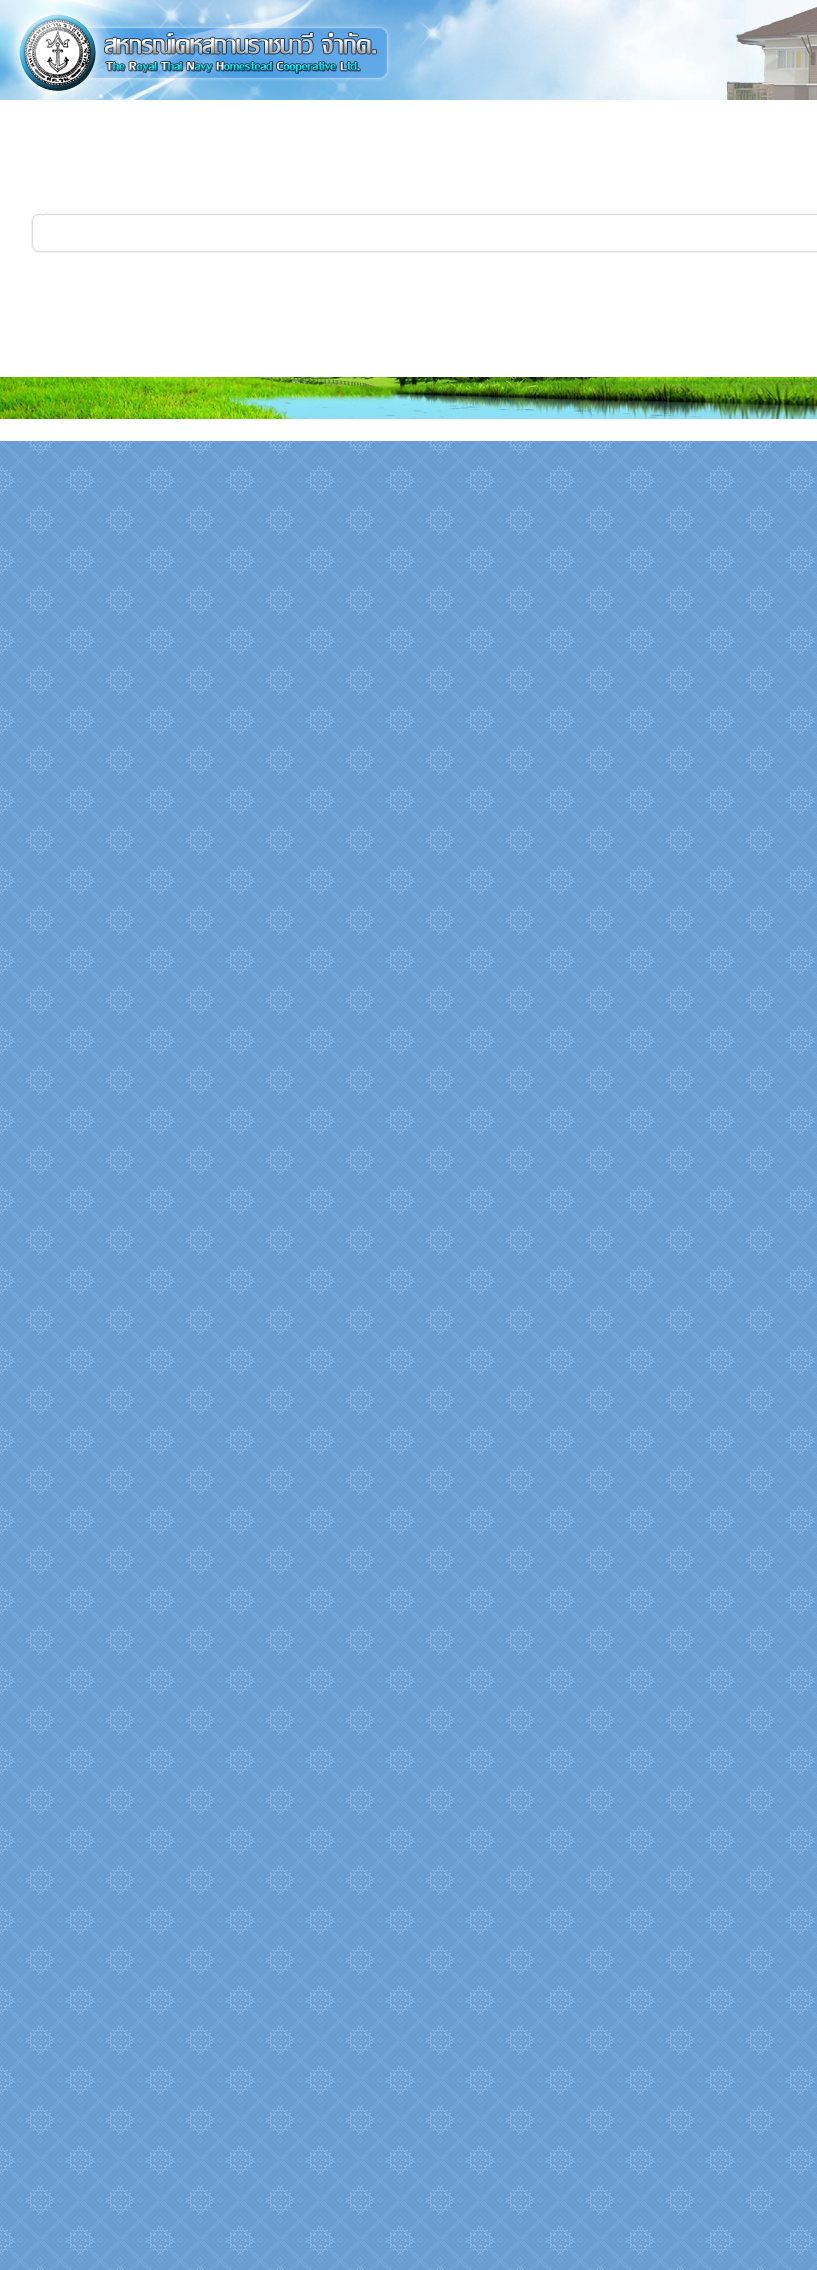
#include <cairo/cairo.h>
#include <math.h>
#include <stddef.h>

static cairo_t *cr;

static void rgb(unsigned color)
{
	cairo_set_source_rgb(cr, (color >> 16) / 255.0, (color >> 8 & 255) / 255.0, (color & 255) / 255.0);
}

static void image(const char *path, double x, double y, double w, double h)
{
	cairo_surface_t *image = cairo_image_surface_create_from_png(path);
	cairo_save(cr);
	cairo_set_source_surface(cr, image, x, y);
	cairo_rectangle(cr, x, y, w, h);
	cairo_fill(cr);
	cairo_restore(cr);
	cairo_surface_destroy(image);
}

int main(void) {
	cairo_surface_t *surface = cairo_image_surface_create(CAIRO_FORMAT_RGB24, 817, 2270);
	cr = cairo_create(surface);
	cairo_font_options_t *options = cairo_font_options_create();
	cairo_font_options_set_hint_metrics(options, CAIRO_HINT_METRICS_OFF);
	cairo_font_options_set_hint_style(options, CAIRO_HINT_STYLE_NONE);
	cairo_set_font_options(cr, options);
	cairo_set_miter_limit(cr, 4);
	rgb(0xffffff);
	cairo_paint(cr);
	image("img/1.png", 0, 441, 817, 1829);
	image("img/2.png", 0, 0, 817, 100);
	image("img/3.png", 41, 214, 3, 2);
	image("img/4.png", 25, 213, 16, 11);
	image("img/5.png", 44, 213, 773, 2);
	image("img/6.png", 31, 224, 2, 18);
	image("img/7.png", 38, 251, 6, 2);
	image("img/8.png", 25, 242, 13, 11);
	image("img/9.png", 44, 251, 773, 2);
	image("img/10.png", 0, 377, 817, 42);
	cairo_surface_write_to_png(surface, "page.png");
	cairo_font_options_destroy(options);
	cairo_destroy(cr);
	cairo_surface_destroy(surface);
	return 0;
}
